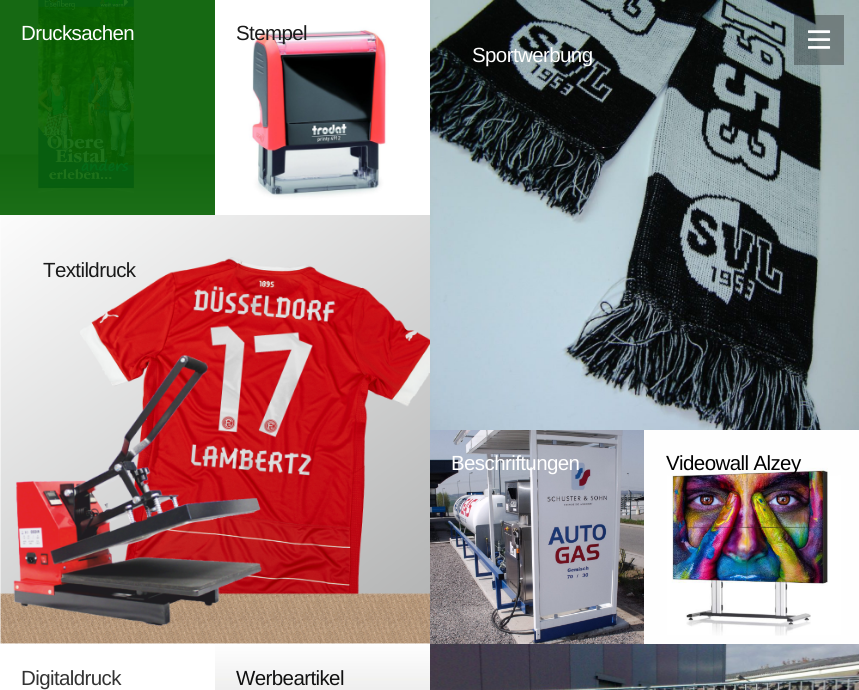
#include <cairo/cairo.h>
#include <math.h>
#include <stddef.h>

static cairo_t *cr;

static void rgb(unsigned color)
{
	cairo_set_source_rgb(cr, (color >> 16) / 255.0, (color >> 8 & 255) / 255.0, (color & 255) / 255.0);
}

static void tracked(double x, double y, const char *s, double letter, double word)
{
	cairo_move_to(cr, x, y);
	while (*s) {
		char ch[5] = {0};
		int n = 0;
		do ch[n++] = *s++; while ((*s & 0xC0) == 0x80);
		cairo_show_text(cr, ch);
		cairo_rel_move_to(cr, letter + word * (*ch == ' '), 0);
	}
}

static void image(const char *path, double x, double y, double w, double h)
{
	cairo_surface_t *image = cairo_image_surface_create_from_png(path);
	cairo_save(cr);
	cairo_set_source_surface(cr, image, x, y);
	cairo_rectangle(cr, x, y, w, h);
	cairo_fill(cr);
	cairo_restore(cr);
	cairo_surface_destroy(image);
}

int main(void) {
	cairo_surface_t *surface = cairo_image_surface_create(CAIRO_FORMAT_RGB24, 859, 690);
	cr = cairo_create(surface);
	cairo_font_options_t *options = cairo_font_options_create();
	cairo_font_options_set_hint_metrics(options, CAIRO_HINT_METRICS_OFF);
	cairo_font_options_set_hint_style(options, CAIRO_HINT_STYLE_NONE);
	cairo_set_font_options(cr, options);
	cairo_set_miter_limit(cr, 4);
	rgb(0x056100);
	cairo_paint(cr);
	image("img/1.png", 0, 0, 215, 215);
	image("img/2.png", 215, 0, 215, 215);
	image("img/3.png", 430, 0, 429, 430);
	image("img/4.png", 0, 215, 430, 429);
	image("img/5.png", 430, 430, 214, 214);
	image("img/6.png", 644, 430, 215, 214);
	rgb(0xffffff);
	cairo_rectangle(cr, 0, 644, 215, 46);
	cairo_fill(cr);
	image("img/7.png", 215, 644, 215, 46);
	image("img/8.png", 430, 644, 429, 46);
	cairo_set_source_rgba(cr, 0, 0, 0, 0.3);
	cairo_rectangle(cr, 794, 15, 50, 50);
	cairo_fill(cr);
	image("img/9.png", 808, 30, 23, 19);
	cairo_select_font_face(cr, "Liberation Sans", CAIRO_FONT_SLANT_NORMAL, CAIRO_FONT_WEIGHT_NORMAL);
	cairo_set_font_size(cr, 20.5);
	rgb(0xffffff);
	tracked(21, 40, "Drucksachen", -0.6, 0);
	rgb(0x1a1a1a);
	tracked(236, 40, "Stempel", -0.6, 0);
	rgb(0xffffff);
	tracked(472, 62, "Sportwerbung", -0.6, 0);
	rgb(0x1a1a1a);
	tracked(43, 277, "Textildruck", -0.6, 0);
	rgb(0xffffff);
	tracked(451, 470, "Beschriftungen", -0.6, 0);
	rgb(0x000000);
	tracked(666, 470, "Videowall Alzey", -0.6, 0);
	rgb(0x333333);
	tracked(21, 685, "Digitaldruck", -0.6, 0);
	rgb(0x111111);
	tracked(236, 685, "Werbeartikel", -0.6, 0);
	cairo_surface_write_to_png(surface, "page.png");
	cairo_font_options_destroy(options);
	cairo_destroy(cr);
	cairo_surface_destroy(surface);
	return 0;
}
